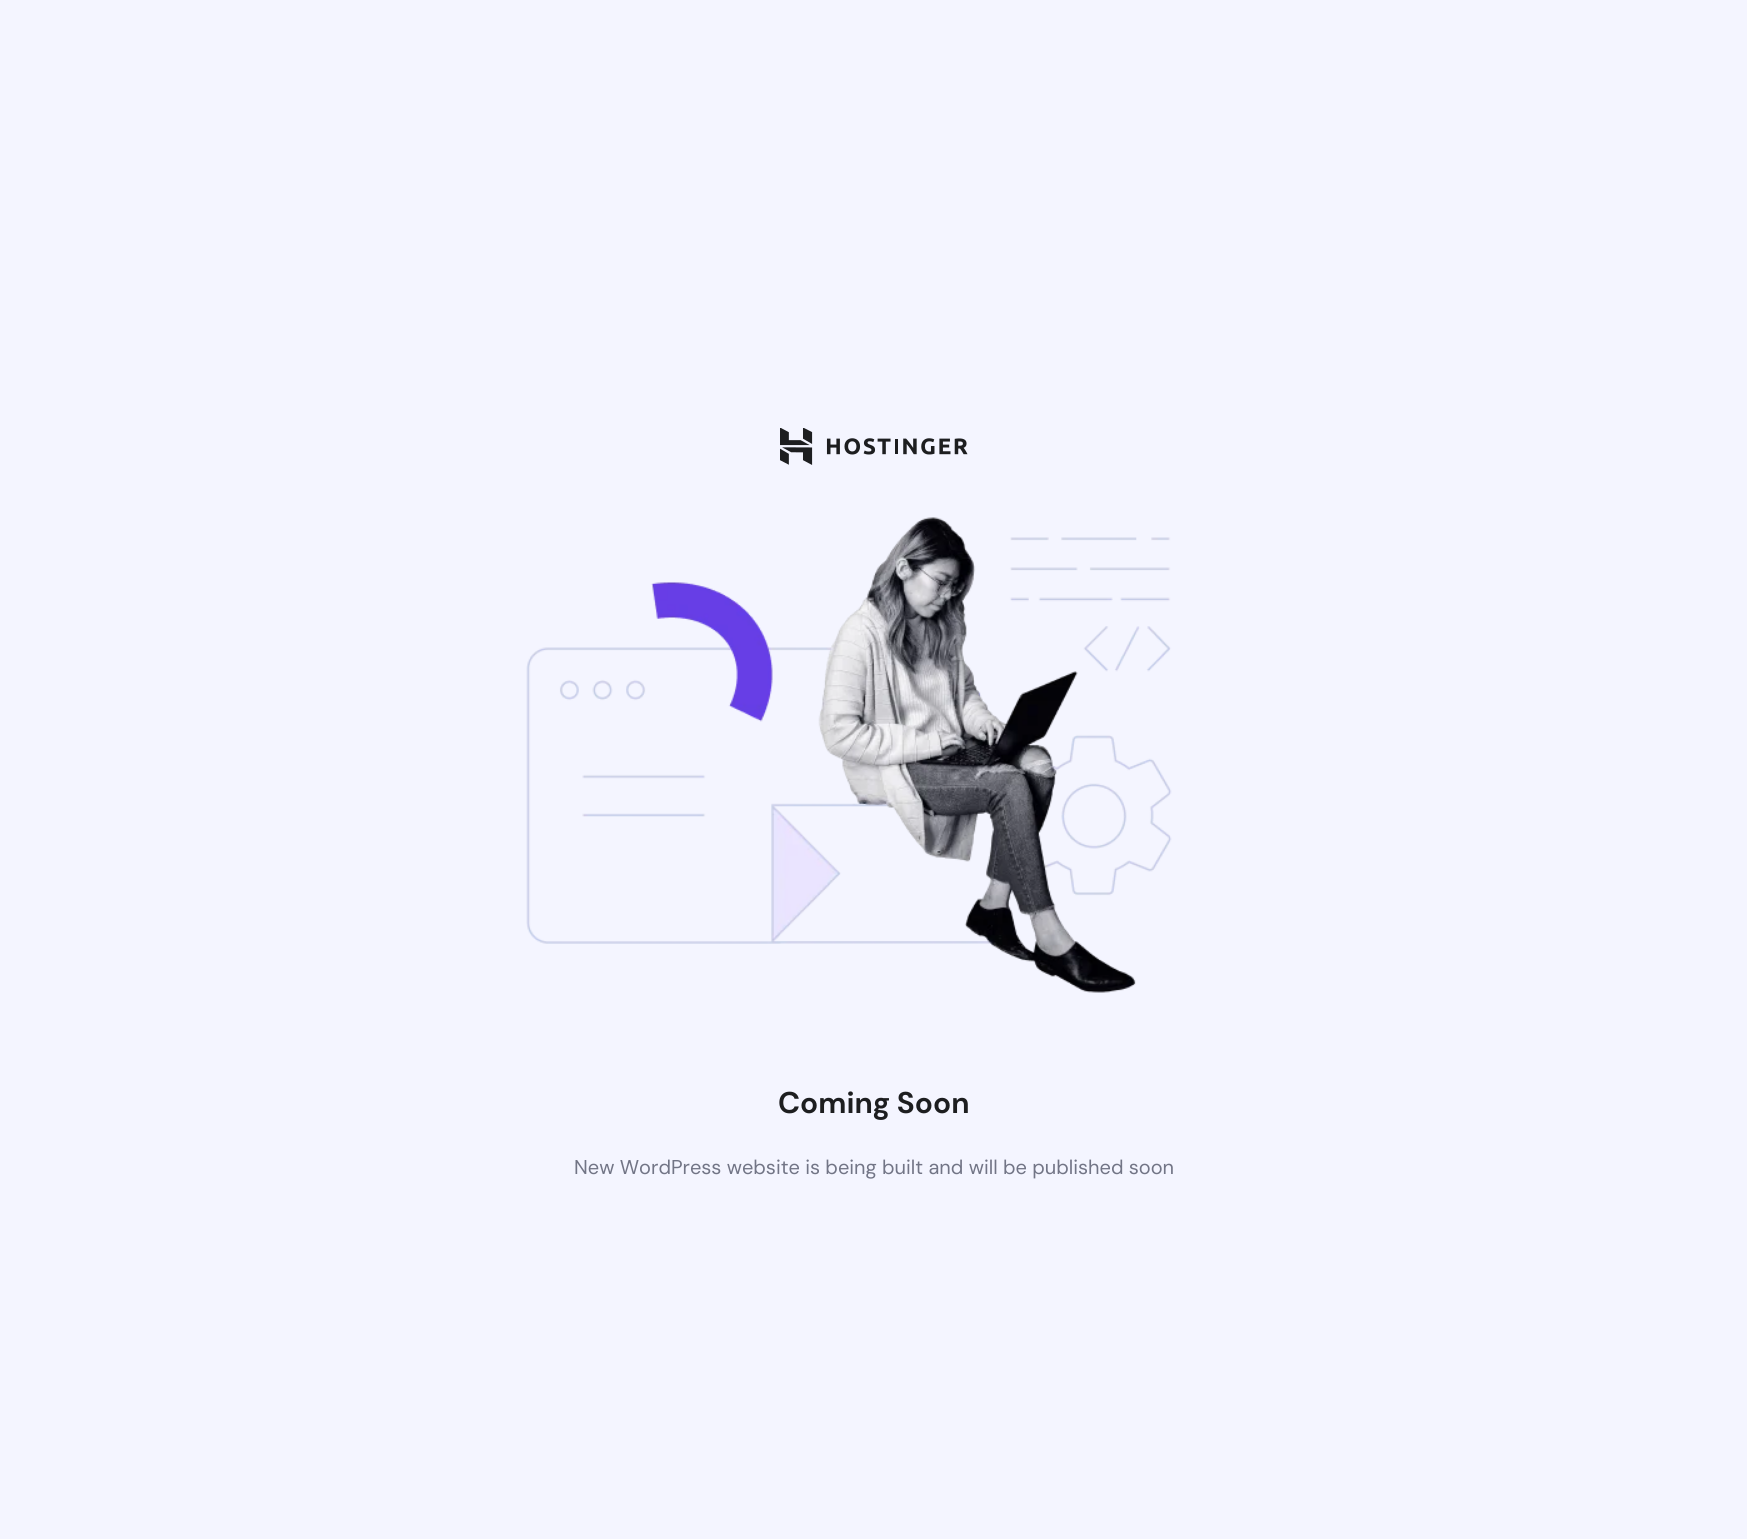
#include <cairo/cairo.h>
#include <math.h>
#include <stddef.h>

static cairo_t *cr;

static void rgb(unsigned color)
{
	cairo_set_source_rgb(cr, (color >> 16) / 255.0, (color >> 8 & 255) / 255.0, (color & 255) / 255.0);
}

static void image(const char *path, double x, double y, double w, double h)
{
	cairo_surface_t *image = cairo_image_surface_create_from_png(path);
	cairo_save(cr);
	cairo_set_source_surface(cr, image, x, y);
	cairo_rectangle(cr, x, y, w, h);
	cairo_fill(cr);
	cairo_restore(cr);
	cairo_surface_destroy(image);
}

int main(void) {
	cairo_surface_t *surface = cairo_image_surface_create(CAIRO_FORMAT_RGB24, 1747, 1539);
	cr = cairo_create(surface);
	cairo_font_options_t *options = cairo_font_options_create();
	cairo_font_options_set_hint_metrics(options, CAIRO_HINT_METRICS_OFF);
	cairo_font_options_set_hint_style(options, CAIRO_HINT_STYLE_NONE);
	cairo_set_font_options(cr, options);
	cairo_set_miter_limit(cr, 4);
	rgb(0xf4f5ff);
	cairo_paint(cr);
	image("img/1.png", 780, 428, 188, 37);
	image("img/2.png", 526, 517, 646, 476);
	cairo_select_font_face(cr, "DM Sans", CAIRO_FONT_SLANT_NORMAL, CAIRO_FONT_WEIGHT_BOLD);
	cairo_set_font_size(cr, 30);
	rgb(0x1d1e20);
	cairo_move_to(cr, 778, 1113);
	cairo_show_text(cr, "Coming Soon");
	cairo_select_font_face(cr, "DM Sans", CAIRO_FONT_SLANT_NORMAL, CAIRO_FONT_WEIGHT_NORMAL);
	cairo_set_font_size(cr, 20);
	rgb(0x727586);
	cairo_move_to(cr, 574, 1174);
	cairo_show_text(cr, "New WordPress website is being built and will be published soon");
	cairo_surface_write_to_png(surface, "page.png");
	cairo_font_options_destroy(options);
	cairo_destroy(cr);
	cairo_surface_destroy(surface);
	return 0;
}
